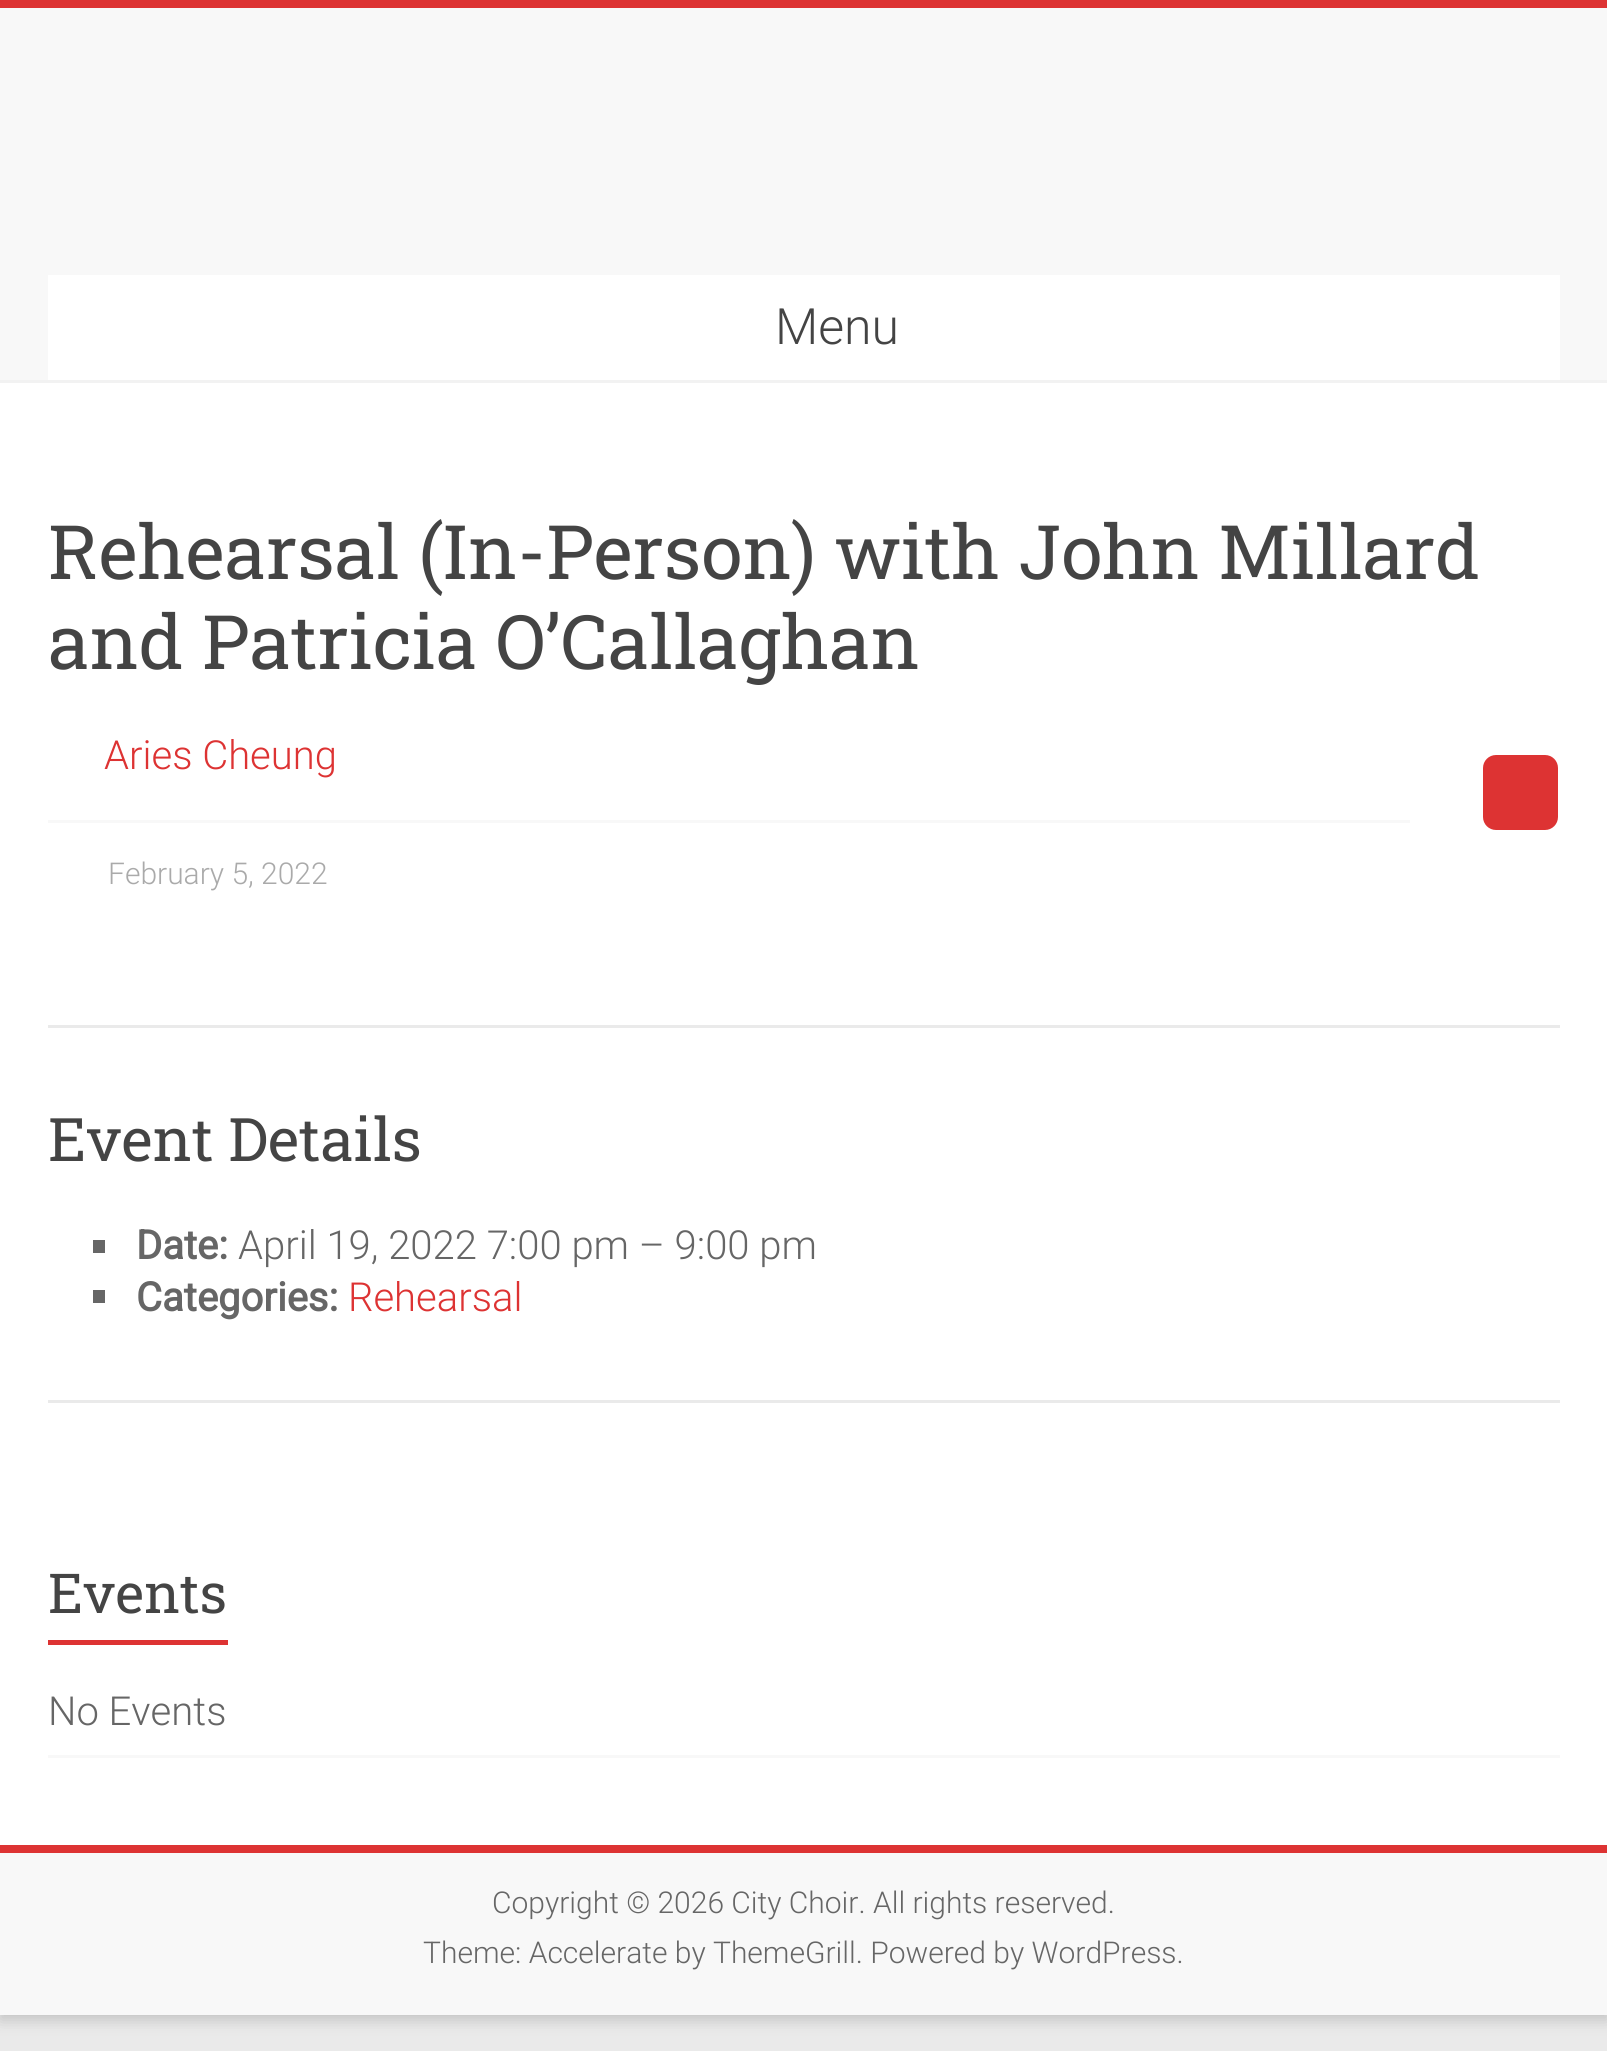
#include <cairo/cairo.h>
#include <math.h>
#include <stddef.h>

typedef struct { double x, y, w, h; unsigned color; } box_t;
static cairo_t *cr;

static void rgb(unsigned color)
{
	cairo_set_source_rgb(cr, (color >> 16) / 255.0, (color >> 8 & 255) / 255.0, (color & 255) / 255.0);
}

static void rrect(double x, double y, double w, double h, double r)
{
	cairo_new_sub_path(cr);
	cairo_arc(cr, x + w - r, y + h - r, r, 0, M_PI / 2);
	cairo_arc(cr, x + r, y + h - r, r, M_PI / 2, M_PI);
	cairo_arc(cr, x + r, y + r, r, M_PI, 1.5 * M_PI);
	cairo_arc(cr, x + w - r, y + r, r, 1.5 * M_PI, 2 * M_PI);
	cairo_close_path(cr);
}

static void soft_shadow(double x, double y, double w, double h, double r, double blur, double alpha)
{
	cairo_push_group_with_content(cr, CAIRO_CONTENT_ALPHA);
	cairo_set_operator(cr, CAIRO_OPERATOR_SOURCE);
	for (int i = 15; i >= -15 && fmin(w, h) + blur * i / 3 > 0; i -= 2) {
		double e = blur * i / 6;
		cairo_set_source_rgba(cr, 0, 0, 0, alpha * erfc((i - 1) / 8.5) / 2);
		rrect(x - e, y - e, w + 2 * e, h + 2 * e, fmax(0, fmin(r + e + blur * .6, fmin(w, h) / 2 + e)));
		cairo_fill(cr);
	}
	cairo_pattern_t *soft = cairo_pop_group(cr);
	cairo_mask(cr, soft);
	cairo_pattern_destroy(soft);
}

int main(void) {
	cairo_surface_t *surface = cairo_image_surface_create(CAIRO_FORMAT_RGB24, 1607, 2051);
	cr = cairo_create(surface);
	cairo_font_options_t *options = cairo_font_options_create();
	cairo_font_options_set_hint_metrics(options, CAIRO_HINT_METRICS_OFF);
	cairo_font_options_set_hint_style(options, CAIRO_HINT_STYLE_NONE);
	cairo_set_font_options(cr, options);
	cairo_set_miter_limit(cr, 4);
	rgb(0xeaeaea);
	cairo_paint(cr);
	rgb(0x646464);
	soft_shadow(0, 5, 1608, 2015, 0, 7.5, 0.3);
	{
		static const box_t items[] = {
			{0, 383, 1607, 1462, 0xffffff},
			{0, 0, 1607, 8, 0xdd3333},
			{0, 8, 1607, 372, 0xf8f8f8},
			{0, 380, 1607, 3, 0xf2f2f2},
			{48, 275, 1512, 105, 0xffffff},
			{48, 820, 1362, 3, 0xf8f8f8},
		};
		for (size_t i = 0; i < sizeof items / sizeof *items; i++) {
			rgb(items[i].color);
			cairo_rectangle(cr, items[i].x, items[i].y, items[i].w, items[i].h);
			cairo_fill(cr);
		}
	}
	rgb(0xdd3333);
	rrect(1483, 755, 75, 75, 13);
	cairo_fill(cr);
	{
		static const box_t items[] = {
			{48, 1025, 1512, 3, 0xeaeaea},
			{93, 1240, 12, 13, 0x666666},
			{93, 1290, 12, 13, 0x666666},
			{48, 1400, 1512, 3, 0xeaeaea},
			{48, 1640, 180, 5, 0xdd3333},
			{48, 1755, 1512, 3, 0xf8f8f8},
			{0, 1853, 1607, 162, 0xf8f8f8},
			{0, 1845, 1607, 8, 0xdd3333},
		};
		for (size_t i = 0; i < sizeof items / sizeof *items; i++) {
			rgb(items[i].color);
			cairo_rectangle(cr, items[i].x, items[i].y, items[i].w, items[i].h);
			cairo_fill(cr);
		}
	}
	cairo_select_font_face(cr, "Roboto Light", CAIRO_FONT_SLANT_NORMAL, CAIRO_FONT_WEIGHT_NORMAL);
	cairo_set_font_size(cr, 50);
	rgb(0x444444);
	cairo_move_to(cr, 775, 344);
	cairo_show_text(cr, "Menu");
	cairo_select_font_face(cr, "Roboto Slab", CAIRO_FONT_SLANT_NORMAL, CAIRO_FONT_WEIGHT_NORMAL);
	cairo_set_font_size(cr, 75);
	cairo_move_to(cr, 48, 579);
	cairo_show_text(cr, "Rehearsal (In-Person) with John Millard");
	cairo_move_to(cr, 48, 669);
	cairo_show_text(cr, "and Patricia O’Callaghan");
	cairo_select_font_face(cr, "Roboto Light", CAIRO_FONT_SLANT_NORMAL, CAIRO_FONT_WEIGHT_NORMAL);
	cairo_set_font_size(cr, 40);
	rgb(0xdd3333);
	cairo_move_to(cr, 104, 769);
	cairo_show_text(cr, "Aries Cheung");
	cairo_set_font_size(cr, 30);
	rgb(0xaaaaaa);
	cairo_move_to(cr, 108, 884);
	cairo_show_text(cr, "February 5, 2022");
	cairo_select_font_face(cr, "Roboto Slab", CAIRO_FONT_SLANT_NORMAL, CAIRO_FONT_WEIGHT_NORMAL);
	cairo_set_font_size(cr, 60);
	rgb(0x444444);
	cairo_move_to(cr, 48, 1161);
	cairo_show_text(cr, "Event Details");
	cairo_select_font_face(cr, "Roboto", CAIRO_FONT_SLANT_NORMAL, CAIRO_FONT_WEIGHT_BOLD);
	cairo_set_font_size(cr, 40);
	rgb(0x666666);
	cairo_move_to(cr, 136, 1259);
	cairo_show_text(cr, "Date:");
	cairo_select_font_face(cr, "Roboto Light", CAIRO_FONT_SLANT_NORMAL, CAIRO_FONT_WEIGHT_NORMAL);
	cairo_move_to(cr, 238, 1259);
	cairo_show_text(cr, "April 19, 2022 7:00 pm – 9:00 pm");
	cairo_select_font_face(cr, "Roboto", CAIRO_FONT_SLANT_NORMAL, CAIRO_FONT_WEIGHT_BOLD);
	cairo_move_to(cr, 136, 1311);
	cairo_show_text(cr, "Categories:");
	cairo_select_font_face(cr, "Roboto Light", CAIRO_FONT_SLANT_NORMAL, CAIRO_FONT_WEIGHT_NORMAL);
	rgb(0xdd3333);
	cairo_move_to(cr, 348, 1311);
	cairo_show_text(cr, "Rehearsal");
	cairo_select_font_face(cr, "Roboto Slab", CAIRO_FONT_SLANT_NORMAL, CAIRO_FONT_WEIGHT_NORMAL);
	cairo_set_font_size(cr, 55);
	rgb(0x444444);
	cairo_move_to(cr, 48, 1613);
	cairo_show_text(cr, "Events");
	cairo_select_font_face(cr, "Roboto Light", CAIRO_FONT_SLANT_NORMAL, CAIRO_FONT_WEIGHT_NORMAL);
	cairo_set_font_size(cr, 40);
	rgb(0x666666);
	cairo_move_to(cr, 48, 1725);
	cairo_show_text(cr, "No Events");
	cairo_set_font_size(cr, 30);
	cairo_move_to(cr, 492, 1913);
	cairo_show_text(cr, "Copyright © 2026 City Choir. All rights reserved.");
	cairo_move_to(cr, 423, 1963);
	cairo_show_text(cr, "Theme: Accelerate by ThemeGrill. Powered by WordPress.");
	cairo_surface_write_to_png(surface, "page.png");
	cairo_font_options_destroy(options);
	cairo_destroy(cr);
	cairo_surface_destroy(surface);
	return 0;
}
